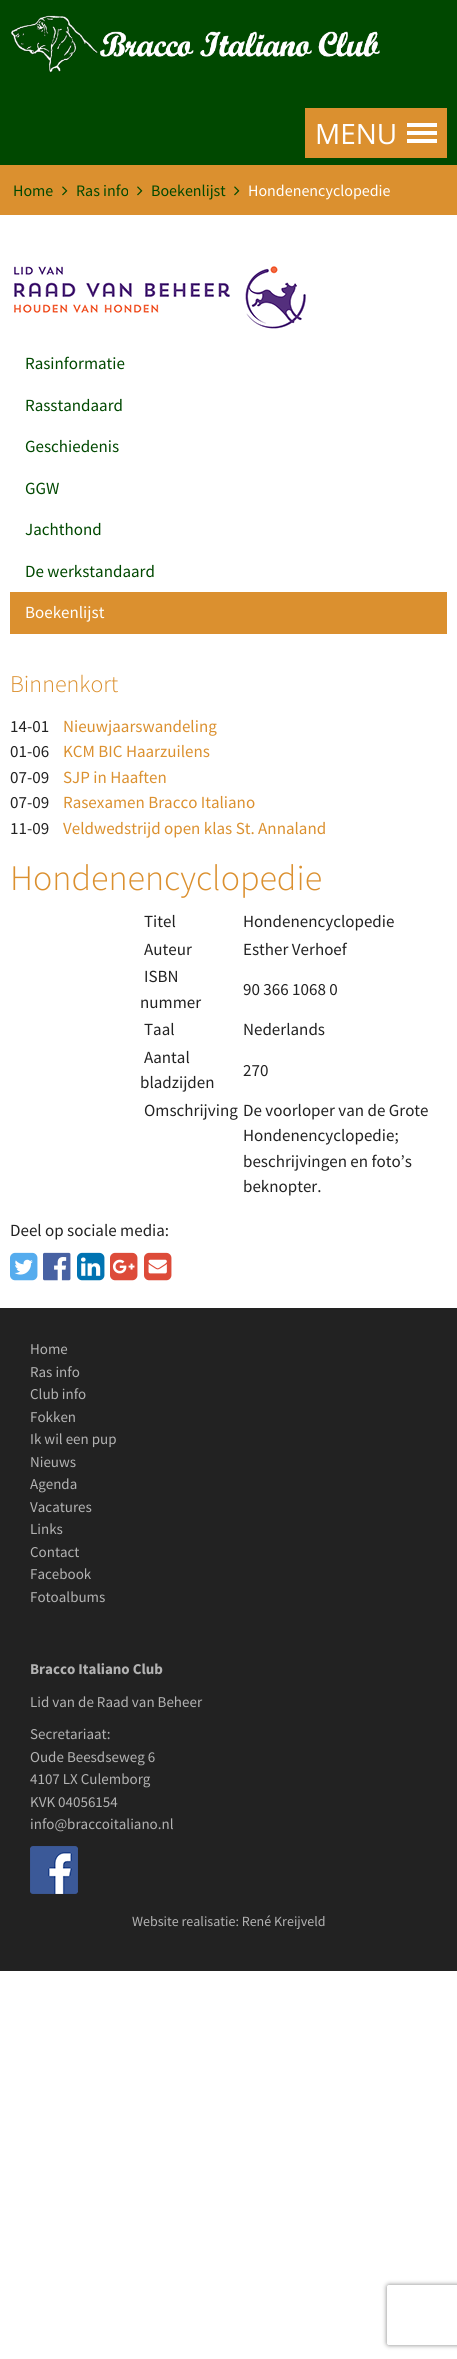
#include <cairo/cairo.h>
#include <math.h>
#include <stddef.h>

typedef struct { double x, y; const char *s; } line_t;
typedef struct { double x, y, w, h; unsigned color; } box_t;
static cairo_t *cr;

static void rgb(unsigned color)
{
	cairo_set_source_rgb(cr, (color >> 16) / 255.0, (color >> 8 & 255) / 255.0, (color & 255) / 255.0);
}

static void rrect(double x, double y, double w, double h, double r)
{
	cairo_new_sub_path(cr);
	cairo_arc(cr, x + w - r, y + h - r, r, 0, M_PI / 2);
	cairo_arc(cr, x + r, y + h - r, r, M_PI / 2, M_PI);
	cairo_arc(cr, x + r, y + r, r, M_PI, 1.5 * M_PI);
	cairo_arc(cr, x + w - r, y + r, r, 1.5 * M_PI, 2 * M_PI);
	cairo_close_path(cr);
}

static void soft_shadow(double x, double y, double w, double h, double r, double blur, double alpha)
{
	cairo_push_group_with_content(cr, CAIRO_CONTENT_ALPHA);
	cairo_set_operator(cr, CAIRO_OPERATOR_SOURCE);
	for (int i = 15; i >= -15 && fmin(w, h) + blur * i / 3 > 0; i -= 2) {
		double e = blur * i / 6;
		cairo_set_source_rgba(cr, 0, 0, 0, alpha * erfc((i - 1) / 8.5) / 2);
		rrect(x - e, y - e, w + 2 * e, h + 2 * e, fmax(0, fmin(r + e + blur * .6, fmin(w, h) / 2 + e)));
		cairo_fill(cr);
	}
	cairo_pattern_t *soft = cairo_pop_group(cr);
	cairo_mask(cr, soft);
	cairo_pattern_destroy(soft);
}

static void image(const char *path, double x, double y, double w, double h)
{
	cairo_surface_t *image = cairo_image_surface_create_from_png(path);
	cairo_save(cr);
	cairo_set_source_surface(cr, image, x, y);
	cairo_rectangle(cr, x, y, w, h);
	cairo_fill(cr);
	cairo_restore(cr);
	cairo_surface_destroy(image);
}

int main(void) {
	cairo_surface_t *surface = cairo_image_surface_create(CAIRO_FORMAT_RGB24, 457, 2359);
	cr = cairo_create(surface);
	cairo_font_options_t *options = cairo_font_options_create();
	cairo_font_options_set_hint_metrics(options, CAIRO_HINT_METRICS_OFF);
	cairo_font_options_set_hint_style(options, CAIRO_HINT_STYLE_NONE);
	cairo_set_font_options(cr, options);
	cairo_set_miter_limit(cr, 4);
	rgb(0xffffff);
	cairo_paint(cr);
	rgb(0x004800);
	cairo_rectangle(cr, 0, 0, 457, 165);
	cairo_fill(cr);
	image("img/1.png", 10, 15, 370, 58);
	{
		static const box_t items[] = {
			{305, 108, 142, 50, 0xdb902f},
			{407, 123, 30, 4, 0xffffff},
			{407, 131, 30, 4, 0xffffff},
			{407, 139, 30, 4, 0xffffff},
			{0, 165, 457, 50, 0xdb902f},
		};
		for (size_t i = 0; i < sizeof items / sizeof *items; i++) {
			rgb(items[i].color);
			cairo_rectangle(cr, items[i].x, items[i].y, items[i].w, items[i].h);
			cairo_fill(cr);
		}
	}
	image("img/2.png", 62, 186, 6, 10);
	image("img/2.png", 137, 186, 6, 10);
	image("img/2.png", 234, 186, 6, 10);
	image("img/3.png", 14, 266, 292, 63);
	cairo_rectangle(cr, 10, 592, 437, 42);
	cairo_fill(cr);
	image("img/4.png", 10, 1252, 28, 29);
	image("img/5.png", 43, 1252, 28, 29);
	image("img/6.png", 77, 1252, 28, 29);
	image("img/7.png", 110, 1252, 28, 29);
	image("img/8.png", 144, 1252, 28, 29);
	rgb(0x222222);
	cairo_rectangle(cr, 0, 1308, 457, 663);
	cairo_fill(cr);
	image("img/9.png", 30, 1846, 48, 48);
	cairo_save(cr);
	cairo_set_fill_rule(cr, CAIRO_FILL_RULE_EVEN_ODD);
	cairo_new_path(cr);
	cairo_move_to(cr, 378, 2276);
	cairo_line_to(cr, 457, 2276);
	cairo_line_to(cr, 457, 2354);
	cairo_line_to(cr, 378, 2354);
	cairo_close_path(cr);
	cairo_move_to(cr, 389, 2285);
	cairo_line_to(cr, 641, 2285);
	cairo_curve_to(cr, 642, 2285, 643, 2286, 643, 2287);
	cairo_line_to(cr, 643, 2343);
	cairo_curve_to(cr, 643, 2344, 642, 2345, 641, 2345);
	cairo_line_to(cr, 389, 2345);
	cairo_curve_to(cr, 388, 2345, 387, 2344, 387, 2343);
	cairo_line_to(cr, 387, 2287);
	cairo_curve_to(cr, 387, 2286, 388, 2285, 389, 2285);
	cairo_close_path(cr);
	cairo_clip(cr);
	rgb(0x808080);
	soft_shadow(387, 2285, 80, 60, 2, 2.5, 1);
	cairo_restore(cr);
	cairo_select_font_face(cr, "Open Sans", CAIRO_FONT_SLANT_NORMAL, CAIRO_FONT_WEIGHT_NORMAL);
	cairo_set_font_size(cr, 28);
	rgb(0xffffff);
	cairo_move_to(cr, 315, 144);
	cairo_show_text(cr, "MENU");
	cairo_select_font_face(cr, "Source Sans Pro", CAIRO_FONT_SLANT_NORMAL, CAIRO_FONT_WEIGHT_NORMAL);
	cairo_set_font_size(cr, 16);
	rgb(0x004800);
	{
		static const line_t items[] = {
			{13, 196, "Home"},
			{76, 196, "Ras info"},
			{151, 196, "Boekenlijst"},
		};
		for (size_t i = 0; i < sizeof items / sizeof *items; i++) {
			cairo_move_to(cr, items[i].x, items[i].y);
			cairo_show_text(cr, items[i].s);
		}
	}
	rgb(0xffffff);
	cairo_move_to(cr, 248, 196);
	cairo_show_text(cr, "Hondenencyclopedie");
	cairo_set_font_size(cr, 17);
	rgb(0x004800);
	{
		static const line_t items[] = {
			{25, 369, "Rasinformatie"},
			{25, 411, "Rasstandaard"},
			{25, 452, "Geschiedenis"},
			{25, 494, "GGW"},
			{25, 535, "Jachthond"},
			{25, 577, "De werkstandaard"},
		};
		for (size_t i = 0; i < sizeof items / sizeof *items; i++) {
			cairo_move_to(cr, items[i].x, items[i].y);
			cairo_show_text(cr, items[i].s);
		}
	}
	rgb(0xffffff);
	cairo_move_to(cr, 25, 618);
	cairo_show_text(cr, "Boekenlijst");
	cairo_select_font_face(cr, "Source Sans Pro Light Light", CAIRO_FONT_SLANT_NORMAL, CAIRO_FONT_WEIGHT_NORMAL);
	cairo_set_font_size(cr, 24);
	rgb(0xdb902f);
	cairo_move_to(cr, 10, 692);
	cairo_show_text(cr, "Binnenkort");
	cairo_select_font_face(cr, "Source Sans Pro", CAIRO_FONT_SLANT_NORMAL, CAIRO_FONT_WEIGHT_NORMAL);
	cairo_set_font_size(cr, 17);
	rgb(0x222222);
	cairo_move_to(cr, 10, 732);
	cairo_show_text(cr, "14-01");
	rgb(0xdb902f);
	cairo_move_to(cr, 63, 732);
	cairo_show_text(cr, "Nieuwjaarswandeling");
	rgb(0x222222);
	cairo_move_to(cr, 10, 757);
	cairo_show_text(cr, "01-06");
	rgb(0xdb902f);
	cairo_move_to(cr, 63, 757);
	cairo_show_text(cr, "KCM BIC Haarzuilens");
	rgb(0x222222);
	cairo_move_to(cr, 10, 783);
	cairo_show_text(cr, "07-09");
	rgb(0xdb902f);
	cairo_move_to(cr, 63, 783);
	cairo_show_text(cr, "SJP in Haaften");
	rgb(0x222222);
	cairo_move_to(cr, 10, 808);
	cairo_show_text(cr, "07-09");
	rgb(0xdb902f);
	cairo_move_to(cr, 63, 808);
	cairo_show_text(cr, "Rasexamen Bracco Italiano");
	rgb(0x222222);
	cairo_move_to(cr, 10, 834);
	cairo_show_text(cr, "11-09");
	rgb(0xdb902f);
	cairo_move_to(cr, 63, 834);
	cairo_show_text(cr, "Veldwedstrijd open klas St. Annaland");
	cairo_select_font_face(cr, "Source Sans Pro Light Light", CAIRO_FONT_SLANT_NORMAL, CAIRO_FONT_WEIGHT_NORMAL);
	cairo_set_font_size(cr, 36);
	cairo_move_to(cr, 10, 890);
	cairo_show_text(cr, "Hondenencyclopedie");
	cairo_select_font_face(cr, "Source Sans Pro", CAIRO_FONT_SLANT_NORMAL, CAIRO_FONT_WEIGHT_NORMAL);
	cairo_set_font_size(cr, 17);
	rgb(0x222222);
	{
		static const line_t items[] = {
			{144, 927, "Titel"},
			{243, 927, "Hondenencyclopedie"},
			{144, 955, "Auteur"},
			{243, 955, "Esther Verhoef"},
			{144, 982, "ISBN"},
			{140, 1008, "nummer"},
			{243, 995, "90 366 1068 0"},
			{144, 1035, "Taal"},
			{243, 1035, "Nederlands"},
			{144, 1063, "Aantal"},
			{140, 1088, "bladzijden"},
			{243, 1076, "270"},
			{144, 1116, "Omschrijving"},
			{243, 1116, "De voorloper van de Grote"},
			{243, 1141, "Hondenencyclopedie;"},
			{243, 1167, "beschrijvingen en foto’s"},
			{243, 1192, "beknopter."},
			{10, 1236, "Deel op sociale media:"},
		};
		for (size_t i = 0; i < sizeof items / sizeof *items; i++) {
			cairo_move_to(cr, items[i].x, items[i].y);
			cairo_show_text(cr, items[i].s);
		}
	}
	cairo_set_font_size(cr, 15);
	rgb(0xb3b3b3);
	{
		static const line_t items[] = {
			{30, 1354, "Home"},
			{30, 1377, "Ras info"},
			{30, 1399, "Club info"},
			{30, 1422, "Fokken"},
			{30, 1444, "Ik wil een pup"},
			{30, 1467, "Nieuws"},
			{30, 1489, "Agenda"},
			{30, 1512, "Vacatures"},
			{30, 1534, "Links"},
			{30, 1557, "Contact"},
			{30, 1579, "Facebook"},
			{30, 1602, "Fotoalbums"},
		};
		for (size_t i = 0; i < sizeof items / sizeof *items; i++) {
			cairo_move_to(cr, items[i].x, items[i].y);
			cairo_show_text(cr, items[i].s);
		}
	}
	cairo_select_font_face(cr, "Source Sans Pro", CAIRO_FONT_SLANT_NORMAL, CAIRO_FONT_WEIGHT_BOLD);
	cairo_move_to(cr, 30, 1674);
	cairo_show_text(cr, "Bracco Italiano Club");
	cairo_select_font_face(cr, "Source Sans Pro", CAIRO_FONT_SLANT_NORMAL, CAIRO_FONT_WEIGHT_NORMAL);
	{
		static const line_t items[] = {
			{30, 1707, "Lid van de Raad van Beheer"},
			{30, 1739, "Secretariaat:"},
			{30, 1762, "Oude Beesdseweg 6"},
			{30, 1784, "4107 LX Culemborg"},
			{30, 1807, "KVK 04056154"},
			{30, 1829, "info@braccoitaliano.nl"},
		};
		for (size_t i = 0; i < sizeof items / sizeof *items; i++) {
			cairo_move_to(cr, items[i].x, items[i].y);
			cairo_show_text(cr, items[i].s);
		}
	}
	cairo_set_font_size(cr, 14);
	cairo_move_to(cr, 132, 1926);
	cairo_show_text(cr, "Website realisatie: René Kreijveld");
	cairo_surface_write_to_png(surface, "page.png");
	cairo_font_options_destroy(options);
	cairo_destroy(cr);
	cairo_surface_destroy(surface);
	return 0;
}
